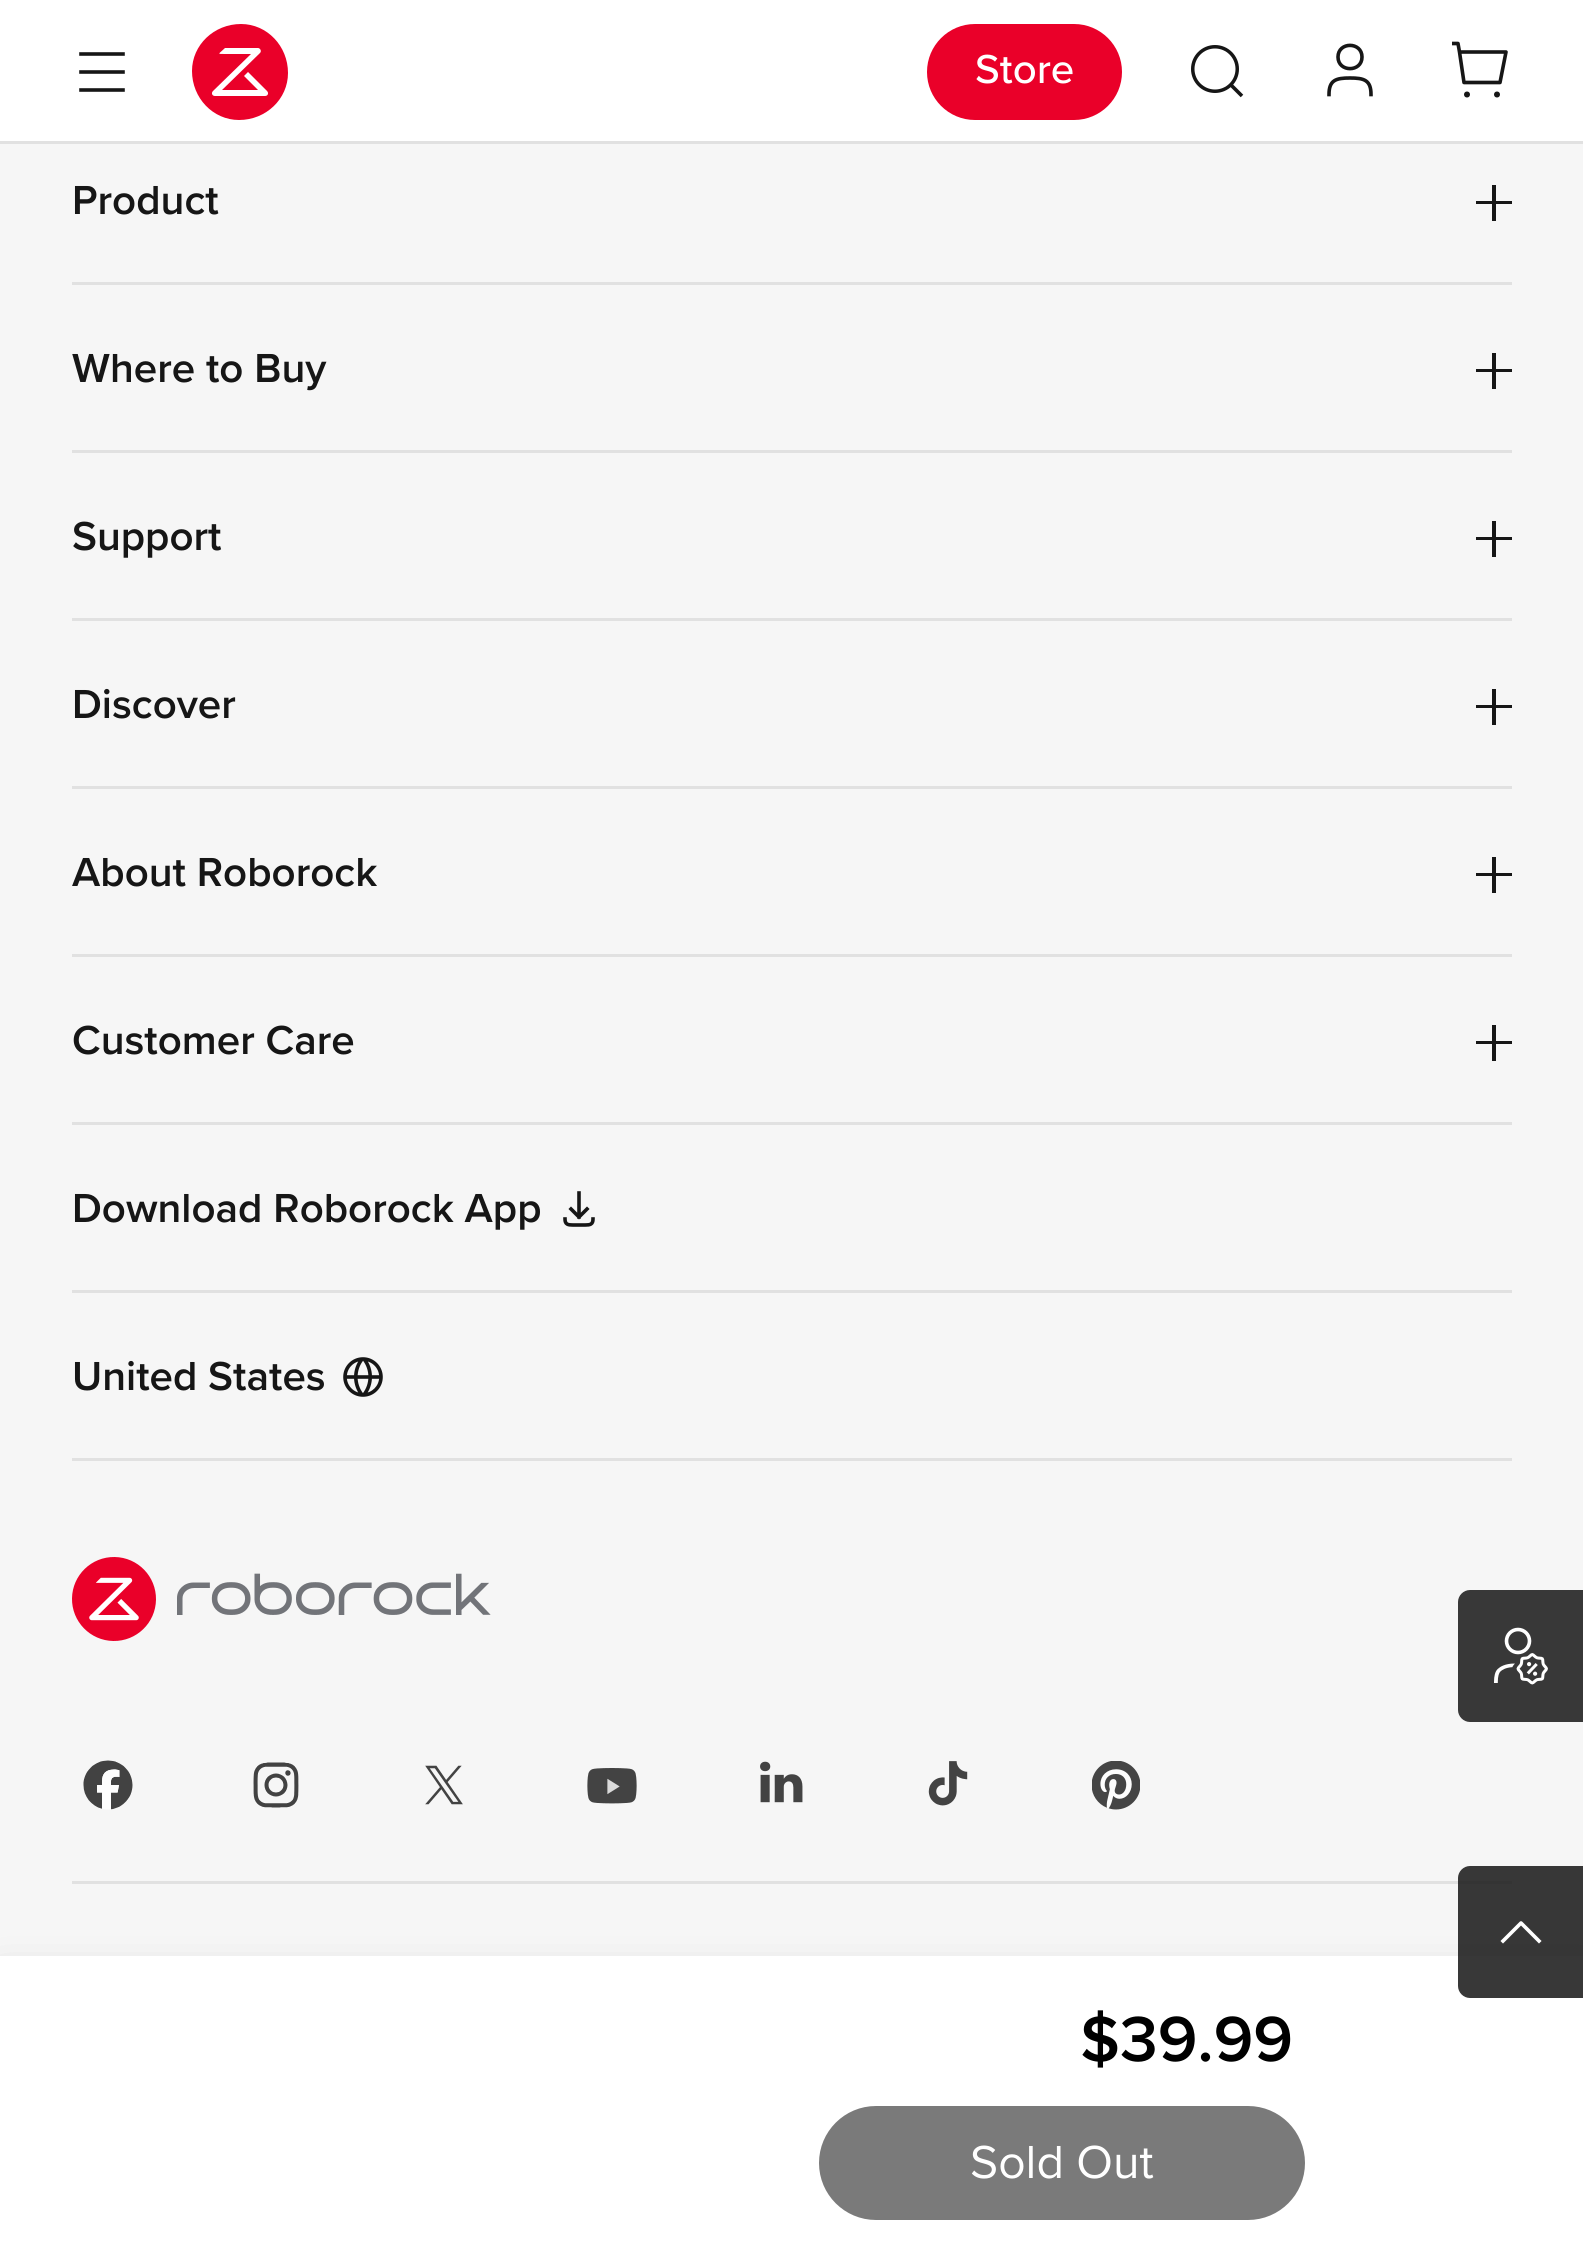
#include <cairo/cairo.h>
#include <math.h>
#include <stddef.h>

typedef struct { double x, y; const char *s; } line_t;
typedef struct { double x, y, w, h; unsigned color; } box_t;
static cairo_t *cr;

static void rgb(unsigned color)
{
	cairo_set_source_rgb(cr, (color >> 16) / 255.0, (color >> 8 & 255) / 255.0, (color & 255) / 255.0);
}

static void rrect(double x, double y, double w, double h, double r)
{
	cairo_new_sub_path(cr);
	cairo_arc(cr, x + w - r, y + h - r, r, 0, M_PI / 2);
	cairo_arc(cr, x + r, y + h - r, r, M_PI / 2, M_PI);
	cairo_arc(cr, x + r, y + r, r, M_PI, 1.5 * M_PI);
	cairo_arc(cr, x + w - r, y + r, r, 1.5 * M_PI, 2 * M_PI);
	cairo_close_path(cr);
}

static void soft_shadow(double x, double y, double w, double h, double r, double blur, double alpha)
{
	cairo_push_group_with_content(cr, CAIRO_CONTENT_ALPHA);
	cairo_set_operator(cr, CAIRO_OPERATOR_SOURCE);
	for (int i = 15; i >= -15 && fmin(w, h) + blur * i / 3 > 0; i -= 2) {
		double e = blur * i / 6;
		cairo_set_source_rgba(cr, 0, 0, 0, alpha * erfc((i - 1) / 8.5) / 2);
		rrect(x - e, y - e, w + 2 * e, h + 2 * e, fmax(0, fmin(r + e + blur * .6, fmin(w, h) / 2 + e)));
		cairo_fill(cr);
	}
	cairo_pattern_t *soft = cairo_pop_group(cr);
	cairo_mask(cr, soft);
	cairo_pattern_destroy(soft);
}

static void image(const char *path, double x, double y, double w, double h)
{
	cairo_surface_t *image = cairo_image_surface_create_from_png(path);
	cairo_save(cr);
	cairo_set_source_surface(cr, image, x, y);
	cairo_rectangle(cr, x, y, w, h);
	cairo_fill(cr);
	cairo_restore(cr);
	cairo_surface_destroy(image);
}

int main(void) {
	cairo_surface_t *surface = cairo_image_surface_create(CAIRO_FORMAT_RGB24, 1583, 2268);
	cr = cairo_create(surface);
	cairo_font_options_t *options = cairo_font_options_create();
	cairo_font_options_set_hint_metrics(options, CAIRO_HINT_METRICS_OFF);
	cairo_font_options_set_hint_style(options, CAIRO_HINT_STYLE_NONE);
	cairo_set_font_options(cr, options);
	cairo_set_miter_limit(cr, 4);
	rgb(0xf6f6f6);
	cairo_paint(cr);
	rgb(0xffffff);
	cairo_rectangle(cr, 0, 0, 1583, 141);
	cairo_fill(cr);
	rgb(0xe1e1e1);
	cairo_rectangle(cr, 0, 141, 1583, 3);
	cairo_fill(cr);
	cairo_new_path(cr);
	cairo_move_to(cr, 81, 72);
	cairo_line_to(cr, 123, 72);
	cairo_move_to(cr, 81, 54);
	cairo_line_to(cr, 123, 54);
	cairo_move_to(cr, 81, 90);
	cairo_line_to(cr, 123, 90);
	rgb(0x161616);
	cairo_set_line_width(cr, 3.6);
	cairo_set_line_cap(cr, CAIRO_LINE_CAP_SQUARE);
	cairo_set_line_join(cr, CAIRO_LINE_JOIN_ROUND);
	cairo_stroke(cr);
	rgb(0xea0029);
	cairo_new_path(cr);
	cairo_move_to(cr, 241, 24);
	cairo_curve_to(cr, 214, 24, 192, 45, 192, 71);
	cairo_curve_to(cr, 192, 98, 213, 120, 239, 120);
	cairo_curve_to(cr, 266, 120, 288, 99, 288, 73);
	cairo_curve_to(cr, 288, 46, 267, 24, 241, 24);
	cairo_close_path(cr);
	cairo_fill(cr);
	rgb(0xffffff);
	cairo_new_path(cr);
	cairo_move_to(cr, 265, 96);
	cairo_line_to(cr, 215, 96);
	cairo_curve_to(cr, 212, 96, 211, 93, 213, 91);
	cairo_line_to(cr, 251, 54);
	cairo_line_to(cr, 225, 54);
	cairo_curve_to(cr, 216, 54, 219, 54, 225, 48);
	cairo_line_to(cr, 258, 48);
	cairo_curve_to(cr, 260, 48, 262, 51, 260, 53);
	cairo_line_to(cr, 222, 90);
	cairo_line_to(cr, 258, 90);
	cairo_line_to(cr, 244, 76);
	cairo_line_to(cr, 248, 72);
	cairo_line_to(cr, 267, 91);
	cairo_curve_to(cr, 269, 93, 268, 96, 265, 96);
	cairo_close_path(cr);
	cairo_fill(cr);
	rgb(0xea0029);
	rrect(927, 24, 195, 96, 48);
	cairo_fill(cr);
	cairo_arc(cr, 1215, 69, 22.25, 0, 2 * M_PI);
	rgb(0x161616);
	cairo_set_line_width(cr, 3.5);
	cairo_set_line_cap(cr, CAIRO_LINE_CAP_BUTT);
	cairo_set_line_join(cr, CAIRO_LINE_JOIN_MITER);
	cairo_stroke(cr);
	cairo_new_path(cr);
	cairo_move_to(cr, 1230, 84);
	cairo_line_to(cr, 1242, 96);
	cairo_set_line_width(cr, 3.6);
	cairo_stroke(cr);
	cairo_new_path(cr);
	cairo_move_to(cr, 1371, 94.5);
	cairo_curve_to(cr, 1371, 80, 1364, 78, 1350, 78);
	cairo_curve_to(cr, 1336, 78, 1329, 80, 1329, 94.5);
	cairo_move_to(cr, 1362, 57);
	cairo_curve_to(cr, 1362, 72.5, 1338, 72.5, 1338, 57);
	cairo_curve_to(cr, 1338, 41.5, 1362, 41.5, 1362, 57);
	cairo_close_path(cr);
	cairo_set_line_cap(cr, CAIRO_LINE_CAP_SQUARE);
	cairo_set_line_join(cr, CAIRO_LINE_JOIN_ROUND);
	cairo_stroke(cr);
	cairo_new_path(cr);
	cairo_move_to(cr, 1452, 43.5);
	cairo_line_to(cr, 1458, 43.5);
	cairo_line_to(cr, 1459.5, 52);
	cairo_move_to(cr, 1459.5, 52);
	cairo_line_to(cr, 1506, 52);
	cairo_line_to(cr, 1500, 82.5);
	cairo_line_to(cr, 1464, 82.5);
	cairo_close_path(cr);
	cairo_set_line_cap(cr, CAIRO_LINE_CAP_BUTT);
	cairo_stroke(cr);
	cairo_arc(cr, 1467, 94.5, 3, 0, 2 * M_PI);
	cairo_fill(cr);
	cairo_arc(cr, 1497, 94.5, 3, 0, 2 * M_PI);
	cairo_fill(cr);
	{
		static const box_t items[] = {
			{72, 282, 1440, 3, 0xe1e1e1},
			{1476, 201, 36, 3, 0x161616},
			{1492, 185, 4, 36, 0x161616},
			{72, 450, 1440, 3, 0xe1e1e1},
			{1476, 369, 36, 3, 0x161616},
			{1492, 353, 4, 36, 0x161616},
			{72, 618, 1440, 3, 0xe1e1e1},
			{1476, 537, 36, 3, 0x161616},
			{1492, 521, 4, 36, 0x161616},
			{72, 786, 1440, 3, 0xe1e1e1},
			{1476, 705, 36, 3, 0x161616},
			{1492, 689, 4, 36, 0x161616},
			{72, 954, 1440, 3, 0xe1e1e1},
			{1476, 873, 36, 3, 0x161616},
			{1492, 857, 4, 36, 0x161616},
			{72, 1122, 1440, 3, 0xe1e1e1},
			{1476, 1041, 36, 3, 0x161616},
			{1492, 1025, 4, 36, 0x161616},
			{72, 1290, 1440, 3, 0xe1e1e1},
		};
		for (size_t i = 0; i < sizeof items / sizeof *items; i++) {
			rgb(items[i].color);
			cairo_rectangle(cr, items[i].x, items[i].y, items[i].w, items[i].h);
			cairo_fill(cr);
		}
	}
	cairo_new_path(cr);
	cairo_move_to(cr, 571, 1209);
	cairo_line_to(cr, 579, 1217);
	cairo_move_to(cr, 579, 1217);
	cairo_line_to(cr, 587, 1209);
	cairo_move_to(cr, 579, 1217);
	cairo_line_to(cr, 579, 1193);
	cairo_move_to(cr, 593, 1219);
	cairo_curve_to(cr, 593, 1224.5, 590, 1225, 585, 1225);
	cairo_line_to(cr, 573, 1225);
	cairo_curve_to(cr, 568, 1225, 565, 1224.5, 565, 1219);
	rgb(0x161616);
	cairo_set_line_cap(cr, CAIRO_LINE_CAP_SQUARE);
	cairo_stroke(cr);
	rgb(0xe1e1e1);
	cairo_rectangle(cr, 72, 1458, 1440, 3);
	cairo_fill(cr);
	image("img/1.png", 343, 1357, 40, 40);
	image("img/2.png", 72, 1557, 419, 84);
	image("img/3.png", 83, 1760, 50, 50);
	image("img/4.png", 253, 1762, 46, 46);
	image("img/5.png", 425, 1765, 38, 40);
	image("img/6.png", 587, 1768, 50, 36);
	image("img/7.png", 760, 1761, 43, 42);
	image("img/8.png", 928, 1761, 40, 45);
	image("img/9.png", 1092, 1761, 48, 49);
	cairo_rectangle(cr, 72, 1881, 1440, 3);
	cairo_fill(cr);
	rgb(0x383838);
	cairo_new_path(cr);
	cairo_move_to(cr, 1470, 1590);
	cairo_line_to(cr, 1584, 1590);
	cairo_line_to(cr, 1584, 1722);
	cairo_line_to(cr, 1470, 1722);
	cairo_curve_to(cr, 1463.5, 1722, 1458, 1716.5, 1458, 1710);
	cairo_line_to(cr, 1458, 1602);
	cairo_curve_to(cr, 1458, 1595.5, 1463.5, 1590, 1470, 1590);
	cairo_close_path(cr);
	cairo_fill(cr);
	image("img/10.png", 1494, 1627, 54, 58);
	rgb(0x000000);
	soft_shadow(0, 1980, 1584, 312, 0, 24, 0.15);
	rgb(0xffffff);
	cairo_rectangle(cr, 0, 1956, 1583, 312);
	cairo_fill(cr);
	cairo_set_source_rgba(cr, 0.086, 0.086, 0.086, 0.85);
	cairo_new_path(cr);
	cairo_move_to(cr, 1470, 1866);
	cairo_line_to(cr, 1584, 1866);
	cairo_line_to(cr, 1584, 1998);
	cairo_line_to(cr, 1470, 1998);
	cairo_curve_to(cr, 1463.5, 1998, 1458, 1992.5, 1458, 1986);
	cairo_line_to(cr, 1458, 1878);
	cairo_curve_to(cr, 1458, 1871.5, 1463.5, 1866, 1470, 1866);
	cairo_close_path(cr);
	cairo_fill(cr);
	cairo_new_path(cr);
	cairo_move_to(cr, 1539, 1941);
	cairo_line_to(cr, 1521, 1923);
	cairo_line_to(cr, 1503, 1941);
	rgb(0xffffff);
	cairo_stroke(cr);
	image("img/11.png", 1082, 2010, 209, 58);
	rgb(0x7a7a7a);
	rrect(820.5, 2107.5, 483, 111, 55.5);
	cairo_fill_preserve(cr);
	cairo_set_line_width(cr, 3);
	cairo_set_line_cap(cr, CAIRO_LINE_CAP_BUTT);
	cairo_set_line_join(cr, CAIRO_LINE_JOIN_MITER);
	cairo_stroke(cr);
	cairo_select_font_face(cr, "Proxima Nova Medium", CAIRO_FONT_SLANT_NORMAL, CAIRO_FONT_WEIGHT_NORMAL);
	cairo_set_font_size(cr, 42);
	rgb(0xffffff);
	cairo_move_to(cr, 975, 83);
	cairo_show_text(cr, "Store");
	cairo_select_font_face(cr, "Proxima Nova SemiBold", CAIRO_FONT_SLANT_NORMAL, CAIRO_FONT_WEIGHT_NORMAL);
	rgb(0x161616);
	{
		static const line_t items[] = {
			{72, 214, "Product"},
			{72, 382, "Where to Buy"},
			{72, 550, "Support"},
			{72, 718, "Discover"},
			{72, 886, "About Roborock"},
			{72, 1054, "Customer Care"},
			{72, 1222, "Download Roborock App"},
			{72, 1390, "United States"},
		};
		for (size_t i = 0; i < sizeof items / sizeof *items; i++) {
			cairo_move_to(cr, items[i].x, items[i].y);
			cairo_show_text(cr, items[i].s);
		}
	}
	cairo_select_font_face(cr, "Proxima Nova", CAIRO_FONT_SLANT_NORMAL, CAIRO_FONT_WEIGHT_NORMAL);
	cairo_set_font_size(cr, 48);
	rgb(0xffffff);
	cairo_move_to(cr, 970, 2178);
	cairo_show_text(cr, "Sold Out");
	cairo_surface_write_to_png(surface, "page.png");
	cairo_font_options_destroy(options);
	cairo_destroy(cr);
	cairo_surface_destroy(surface);
	return 0;
}
